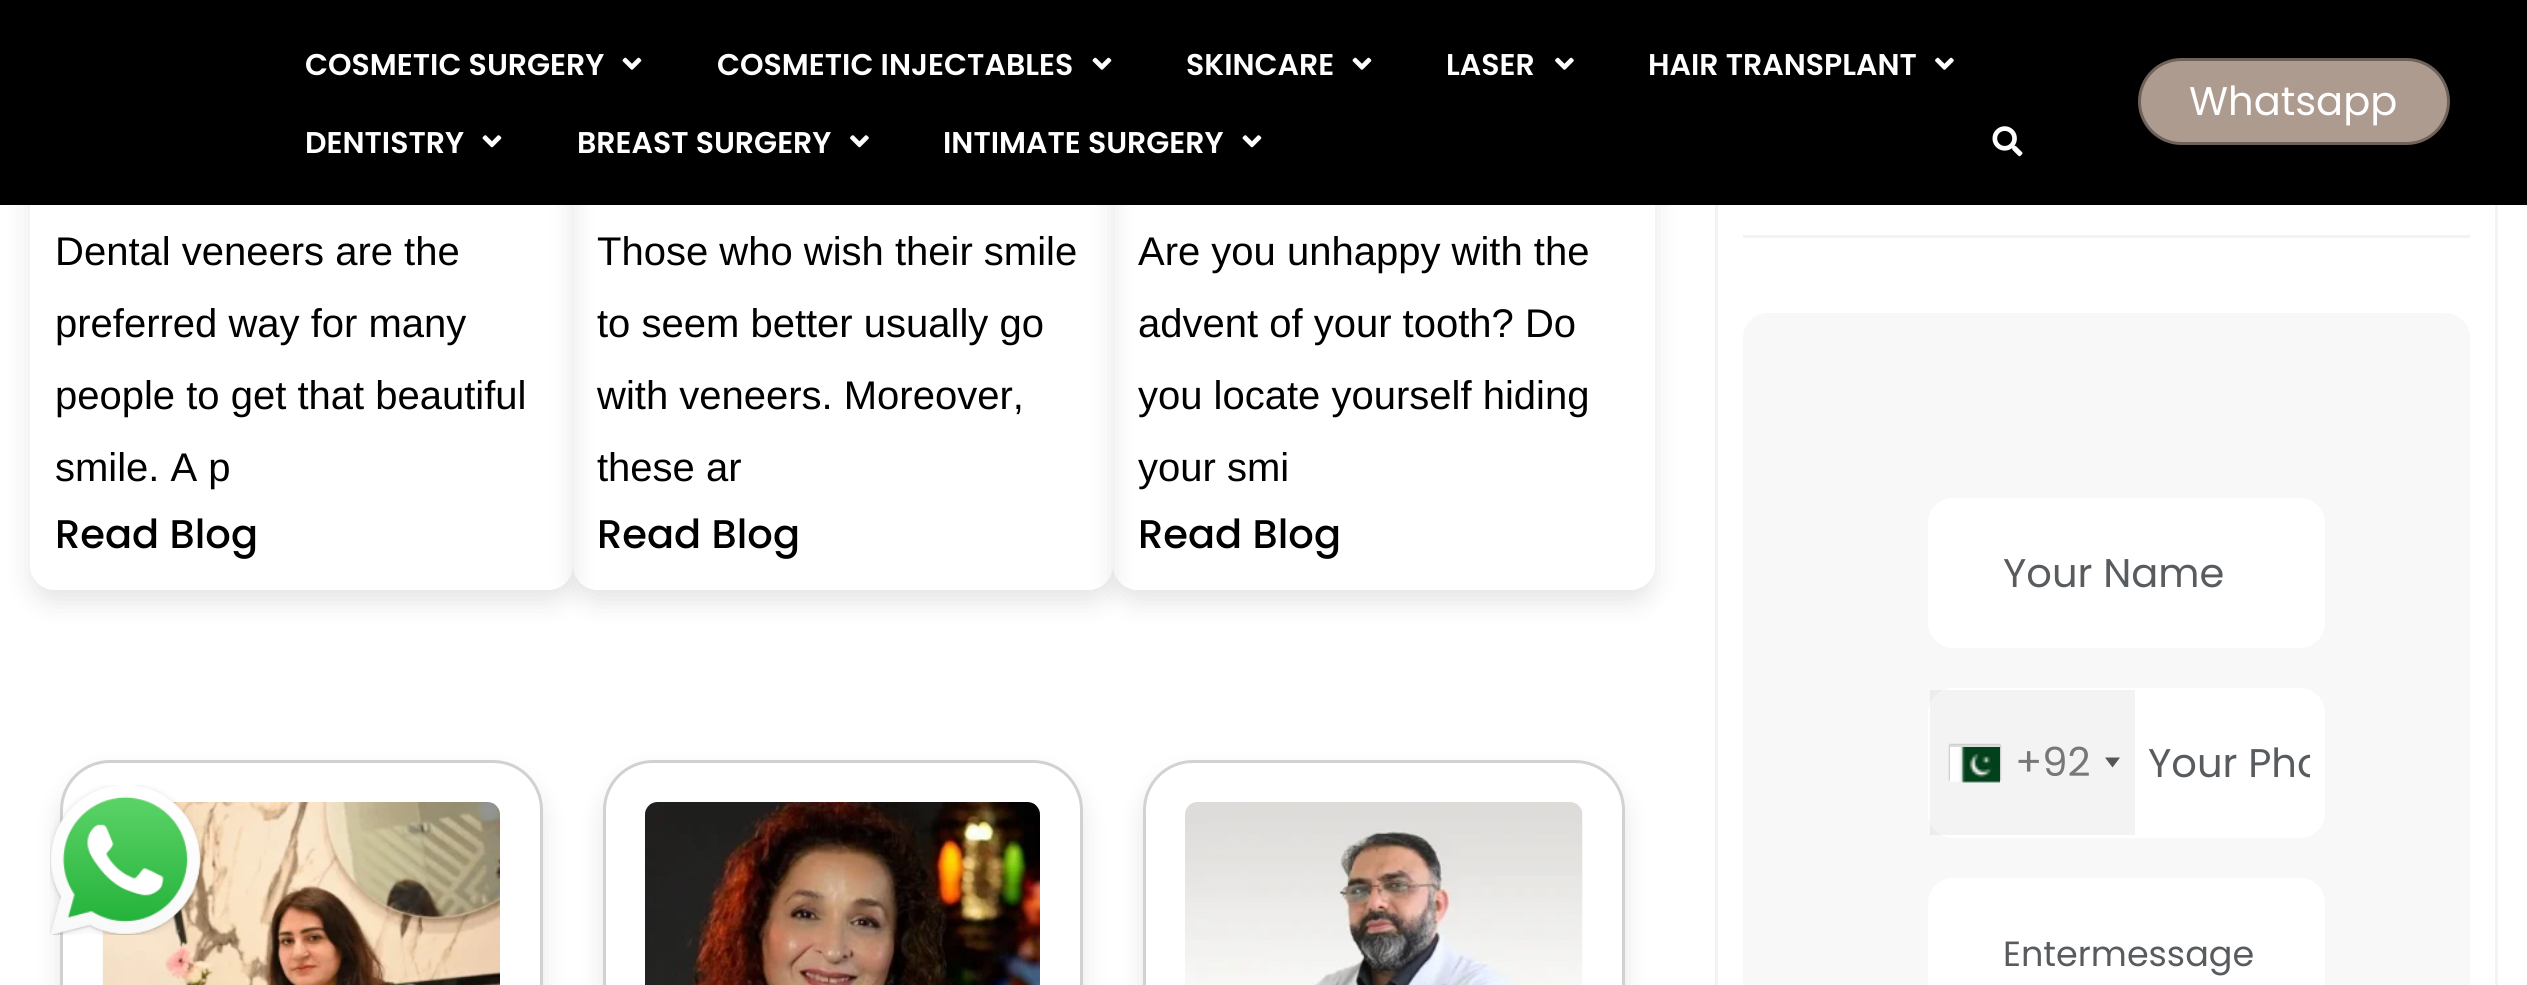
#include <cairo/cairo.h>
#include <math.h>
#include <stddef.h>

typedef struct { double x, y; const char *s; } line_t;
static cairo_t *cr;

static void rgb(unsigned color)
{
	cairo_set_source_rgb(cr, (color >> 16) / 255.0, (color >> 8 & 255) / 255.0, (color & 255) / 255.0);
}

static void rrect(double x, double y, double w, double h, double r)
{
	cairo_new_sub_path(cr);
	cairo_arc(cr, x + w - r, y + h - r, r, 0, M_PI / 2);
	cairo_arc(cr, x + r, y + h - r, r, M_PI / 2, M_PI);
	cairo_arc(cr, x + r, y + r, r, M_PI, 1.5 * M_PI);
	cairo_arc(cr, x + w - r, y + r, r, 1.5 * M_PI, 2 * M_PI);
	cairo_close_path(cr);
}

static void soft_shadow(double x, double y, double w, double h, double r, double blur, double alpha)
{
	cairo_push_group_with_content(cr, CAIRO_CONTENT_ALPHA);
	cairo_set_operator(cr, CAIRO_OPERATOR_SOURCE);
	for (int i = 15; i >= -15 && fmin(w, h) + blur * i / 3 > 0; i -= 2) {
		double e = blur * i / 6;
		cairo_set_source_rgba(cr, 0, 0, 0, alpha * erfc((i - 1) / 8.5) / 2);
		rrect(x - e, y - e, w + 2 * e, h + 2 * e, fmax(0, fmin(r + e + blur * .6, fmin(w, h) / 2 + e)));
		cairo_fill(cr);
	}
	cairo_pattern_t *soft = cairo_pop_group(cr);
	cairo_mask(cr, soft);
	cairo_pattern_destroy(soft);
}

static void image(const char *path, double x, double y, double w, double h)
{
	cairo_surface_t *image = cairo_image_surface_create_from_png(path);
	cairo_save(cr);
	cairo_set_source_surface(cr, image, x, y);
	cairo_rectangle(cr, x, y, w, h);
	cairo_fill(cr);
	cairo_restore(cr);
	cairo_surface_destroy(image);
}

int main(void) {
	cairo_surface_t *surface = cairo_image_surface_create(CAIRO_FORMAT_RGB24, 2527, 985);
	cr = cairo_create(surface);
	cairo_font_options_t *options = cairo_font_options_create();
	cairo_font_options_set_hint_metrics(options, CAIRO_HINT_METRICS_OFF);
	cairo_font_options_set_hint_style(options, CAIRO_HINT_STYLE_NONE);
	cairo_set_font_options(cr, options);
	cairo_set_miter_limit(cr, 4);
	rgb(0xffffff);
	cairo_paint(cr);
	cairo_save(cr);
	cairo_set_fill_rule(cr, CAIRO_FILL_RULE_EVEN_ODD);
	cairo_new_path(cr);
	cairo_move_to(cr, 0, 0);
	cairo_line_to(cr, 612, 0);
	cairo_line_to(cr, 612, 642);
	cairo_line_to(cr, 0, 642);
	cairo_close_path(cr);
	cairo_move_to(cr, 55, -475);
	cairo_line_to(cr, 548, -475);
	cairo_curve_to(cr, 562, -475, 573, -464, 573, -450);
	cairo_line_to(cr, 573, 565);
	cairo_curve_to(cr, 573, 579, 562, 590, 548, 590);
	cairo_line_to(cr, 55, 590);
	cairo_curve_to(cr, 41, 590, 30, 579, 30, 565);
	cairo_line_to(cr, 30, -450);
	cairo_curve_to(cr, 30, -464, 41, -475, 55, -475);
	cairo_close_path(cr);
	cairo_clip(cr);
	rgb(0x000000);
	soft_shadow(30, -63, 543, 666, 25, 12.5, 0.1);
	cairo_restore(cr);
	cairo_save(cr);
	cairo_set_fill_rule(cr, CAIRO_FILL_RULE_EVEN_ODD);
	cairo_new_path(cr);
	cairo_move_to(cr, 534, 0);
	cairo_line_to(cr, 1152, 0);
	cairo_line_to(cr, 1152, 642);
	cairo_line_to(cr, 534, 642);
	cairo_close_path(cr);
	cairo_move_to(cr, 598, -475);
	cairo_line_to(cr, 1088, -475);
	cairo_curve_to(cr, 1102, -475, 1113, -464, 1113, -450);
	cairo_line_to(cr, 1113, 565);
	cairo_curve_to(cr, 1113, 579, 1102, 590, 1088, 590);
	cairo_line_to(cr, 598, 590);
	cairo_curve_to(cr, 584, 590, 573, 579, 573, 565);
	cairo_line_to(cr, 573, -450);
	cairo_curve_to(cr, 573, -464, 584, -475, 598, -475);
	cairo_close_path(cr);
	cairo_clip(cr);
	rgb(0x000000);
	soft_shadow(573, -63, 540, 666, 25, 12.5, 0.1);
	cairo_restore(cr);
	cairo_save(cr);
	cairo_set_fill_rule(cr, CAIRO_FILL_RULE_EVEN_ODD);
	cairo_new_path(cr);
	cairo_move_to(cr, 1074, 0);
	cairo_line_to(cr, 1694, 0);
	cairo_line_to(cr, 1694, 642);
	cairo_line_to(cr, 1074, 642);
	cairo_close_path(cr);
	cairo_move_to(cr, 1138, -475);
	cairo_line_to(cr, 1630, -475);
	cairo_curve_to(cr, 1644, -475, 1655, -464, 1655, -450);
	cairo_line_to(cr, 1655, 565);
	cairo_curve_to(cr, 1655, 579, 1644, 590, 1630, 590);
	cairo_line_to(cr, 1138, 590);
	cairo_curve_to(cr, 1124, 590, 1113, 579, 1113, 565);
	cairo_line_to(cr, 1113, -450);
	cairo_curve_to(cr, 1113, -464, 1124, -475, 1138, -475);
	cairo_close_path(cr);
	cairo_clip(cr);
	rgb(0x000000);
	soft_shadow(1113, -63, 542, 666, 25, 12.5, 0.1);
	cairo_restore(cr);
	cairo_rectangle(cr, 1716.5, 99.5, 780, 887);
	rgb(0xf3f3f3);
	cairo_set_line_width(cr, 3);
	cairo_stroke(cr);
	rgb(0x000000);
	cairo_rectangle(cr, 0, 0, 2527, 205);
	cairo_fill(cr);
	image("img/1.png", 622, 57, 20, 13);
	image("img/1.png", 1092, 57, 20, 13);
	image("img/1.png", 1352, 57, 20, 13);
	image("img/2.png", 1555, 57, 19, 13);
	image("img/2.png", 1935, 57, 19, 13);
	image("img/3.png", 482, 135, 20, 13);
	image("img/4.png", 850, 135, 19, 13);
	image("img/3.png", 1242, 135, 20, 13);
	image("img/5.png", 1992, 126, 31, 31);
	rgb(0xad9b90);
	rrect(2139.5, 59.5, 309, 84, 42);
	cairo_fill_preserve(cr);
	rgb(0x6f625a);
	cairo_stroke(cr);
	rgb(0x000000);
	soft_shadow(60, 773, 483, 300, 50, 12.5, 0.1);
	rgb(0xffffff);
	rrect(60, 760, 483, 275, 50);
	cairo_fill(cr);
	rrect(61.5, 761.5, 480, 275, 48.5);
	cairo_set_source_rgba(cr, 0, 0, 0, 0.18);
	cairo_stroke(cr);
	image("img/6.png", 102, 802, 398, 183);
	rgb(0x000000);
	soft_shadow(603, 773, 480, 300, 50, 12.5, 0.1);
	rgb(0xffffff);
	rrect(603, 760, 480, 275, 50);
	cairo_fill(cr);
	rrect(604.5, 761.5, 477, 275, 48.5);
	cairo_set_source_rgba(cr, 0, 0, 0, 0.18);
	cairo_stroke(cr);
	image("img/7.png", 645, 802, 395, 183);
	rgb(0x000000);
	soft_shadow(1143, 773, 482, 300, 50, 12.5, 0.1);
	rgb(0xffffff);
	rrect(1144.5, 761.5, 479, 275, 48.5);
	cairo_fill_preserve(cr);
	rgb(0xd2d2d2);
	cairo_stroke(cr);
	image("img/8.png", 1185, 802, 398, 183);
	rgb(0xf3f3f3);
	cairo_rectangle(cr, 1743, 235, 727, 3);
	cairo_fill(cr);
	rgb(0xf8f8f8);
	rrect(1743, 313, 727, 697, 25);
	cairo_fill(cr);
	rgb(0xffffff);
	rrect(1928, 498, 397, 150, 25);
	cairo_fill(cr);
	rrect(1928, 688, 397, 150, 25);
	cairo_fill(cr);
	cairo_set_source_rgba(cr, 0, 0, 0, 0.05);
	cairo_rectangle(cr, 1930, 690, 205, 145);
	cairo_fill(cr);
	rgb(0x888888);
	soft_shadow(1950, 745, 50, 35, 0, 1, 1);
	rgb(0xdbdbdb);
	cairo_rectangle(cr, 1950, 745, 50, 2);
	cairo_fill(cr);
	image("img/9.png", 1950, 747, 50, 36);
	rgb(0x555555);
	cairo_new_path(cr);
	cairo_move_to(cr, 2105, 757.5);
	cairo_line_to(cr, 2120, 757.5);
	cairo_line_to(cr, 2112.5, 767.5);
	cairo_close_path(cr);
	cairo_fill(cr);
	rgb(0xffffff);
	rrect(1928, 878, 397, 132, 25);
	cairo_fill(cr);
	image("img/10.png", 50, 785, 150, 150);
	cairo_select_font_face(cr, "Poppins SemiBold", CAIRO_FONT_SLANT_NORMAL, CAIRO_FONT_WEIGHT_NORMAL);
	cairo_set_font_size(cr, 30);
	{
		static const line_t items[] = {
			{305, 75, "COSMETIC SURGERY"},
			{717, 75, "COSMETIC INJECTABLES"},
			{1186, 75, "SKINCARE"},
			{1446, 75, "LASER"},
			{1648, 75, "HAIR TRANSPLANT"},
			{305, 153, "DENTISTRY"},
			{577, 153, "BREAST SURGERY"},
			{943, 153, "INTIMATE SURGERY"},
		};
		for (size_t i = 0; i < sizeof items / sizeof *items; i++) {
			cairo_move_to(cr, items[i].x, items[i].y);
			cairo_show_text(cr, items[i].s);
		}
	}
	cairo_select_font_face(cr, "Poppins", CAIRO_FONT_SLANT_NORMAL, CAIRO_FONT_WEIGHT_NORMAL);
	cairo_set_font_size(cr, 40);
	cairo_move_to(cr, 2189, 115);
	cairo_show_text(cr, "Whatsapp");
	cairo_select_font_face(cr, "Liberation Sans", CAIRO_FONT_SLANT_NORMAL, CAIRO_FONT_WEIGHT_NORMAL);
	rgb(0x000000);
	{
		static const line_t items[] = {
			{55, 265, "Dental veneers are the"},
			{55, 337, "preferred way for many"},
			{55, 409, "people to get that beautiful"},
			{55, 481, "smile. A p"},
		};
		for (size_t i = 0; i < sizeof items / sizeof *items; i++) {
			cairo_move_to(cr, items[i].x, items[i].y);
			cairo_show_text(cr, items[i].s);
		}
	}
	cairo_select_font_face(cr, "Poppins Medium", CAIRO_FONT_SLANT_NORMAL, CAIRO_FONT_WEIGHT_NORMAL);
	cairo_move_to(cr, 55, 548);
	cairo_show_text(cr, "Read Blog");
	cairo_select_font_face(cr, "Liberation Sans", CAIRO_FONT_SLANT_NORMAL, CAIRO_FONT_WEIGHT_NORMAL);
	{
		static const line_t items[] = {
			{597, 265, "Those who wish their smile"},
			{597, 337, "to seem better usually go"},
			{597, 409, "with veneers. Moreover,"},
			{597, 481, "these ar"},
		};
		for (size_t i = 0; i < sizeof items / sizeof *items; i++) {
			cairo_move_to(cr, items[i].x, items[i].y);
			cairo_show_text(cr, items[i].s);
		}
	}
	cairo_select_font_face(cr, "Poppins Medium", CAIRO_FONT_SLANT_NORMAL, CAIRO_FONT_WEIGHT_NORMAL);
	cairo_move_to(cr, 597, 548);
	cairo_show_text(cr, "Read Blog");
	cairo_select_font_face(cr, "Liberation Sans", CAIRO_FONT_SLANT_NORMAL, CAIRO_FONT_WEIGHT_NORMAL);
	{
		static const line_t items[] = {
			{1138, 265, "Are you unhappy with the"},
			{1138, 337, "advent of your tooth? Do"},
			{1138, 409, "you locate yourself hiding"},
			{1138, 481, "your smi"},
		};
		for (size_t i = 0; i < sizeof items / sizeof *items; i++) {
			cairo_move_to(cr, items[i].x, items[i].y);
			cairo_show_text(cr, items[i].s);
		}
	}
	cairo_select_font_face(cr, "Poppins Medium", CAIRO_FONT_SLANT_NORMAL, CAIRO_FONT_WEIGHT_NORMAL);
	cairo_move_to(cr, 1138, 548);
	cairo_show_text(cr, "Read Blog");
	cairo_select_font_face(cr, "Poppins", CAIRO_FONT_SLANT_NORMAL, CAIRO_FONT_WEIGHT_NORMAL);
	rgb(0x595c5f);
	cairo_move_to(cr, 2003, 587);
	cairo_show_text(cr, "Your Name");
	rgb(0x777777);
	cairo_move_to(cr, 2015, 776);
	cairo_show_text(cr, "+92");
	cairo_save(cr);
	cairo_rectangle(cr, 2148, 733, 162, 62);
	cairo_clip(cr);
	rgb(0x595c5f);
	cairo_move_to(cr, 2148, 777);
	cairo_show_text(cr, "Your Pho");
	cairo_restore(cr);
	cairo_set_font_size(cr, 35);
	rgb(0x595c5f);
	cairo_move_to(cr, 2003, 966);
	cairo_show_text(cr, "Entermessage");
	cairo_surface_write_to_png(surface, "page.png");
	cairo_font_options_destroy(options);
	cairo_destroy(cr);
	cairo_surface_destroy(surface);
	return 0;
}
